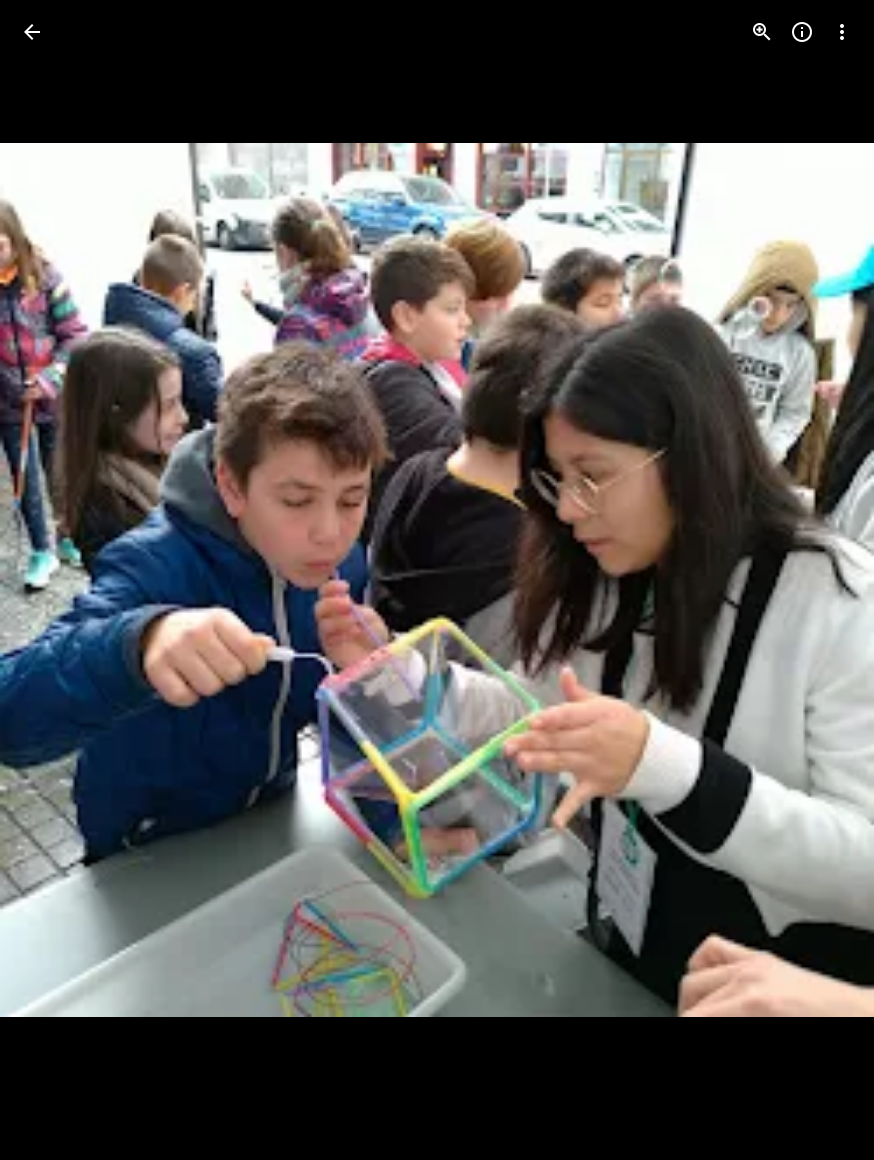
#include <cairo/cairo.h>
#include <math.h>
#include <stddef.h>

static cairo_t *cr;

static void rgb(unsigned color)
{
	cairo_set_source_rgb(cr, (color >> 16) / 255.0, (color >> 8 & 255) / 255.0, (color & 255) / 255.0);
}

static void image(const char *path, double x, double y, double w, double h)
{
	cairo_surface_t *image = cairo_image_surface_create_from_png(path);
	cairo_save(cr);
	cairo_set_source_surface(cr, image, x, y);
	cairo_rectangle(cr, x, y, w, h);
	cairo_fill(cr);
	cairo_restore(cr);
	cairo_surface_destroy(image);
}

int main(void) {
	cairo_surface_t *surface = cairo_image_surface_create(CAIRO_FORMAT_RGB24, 874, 1160);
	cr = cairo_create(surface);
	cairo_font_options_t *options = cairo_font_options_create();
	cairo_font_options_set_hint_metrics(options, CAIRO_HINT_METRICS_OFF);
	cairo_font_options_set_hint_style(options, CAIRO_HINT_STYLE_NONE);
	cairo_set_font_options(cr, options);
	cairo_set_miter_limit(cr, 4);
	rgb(0x000000);
	cairo_paint(cr);
	image("img/1.png", 24, 24, 16, 16);
	image("img/2.png", 753, 23, 18, 18);
	image("img/3.png", 792, 22, 20, 20);
	image("img/4.png", 840, 24, 4, 16);
	image("img/5.png", 0, 143, 874, 874);
	cairo_surface_write_to_png(surface, "page.png");
	cairo_font_options_destroy(options);
	cairo_destroy(cr);
	cairo_surface_destroy(surface);
	return 0;
}
